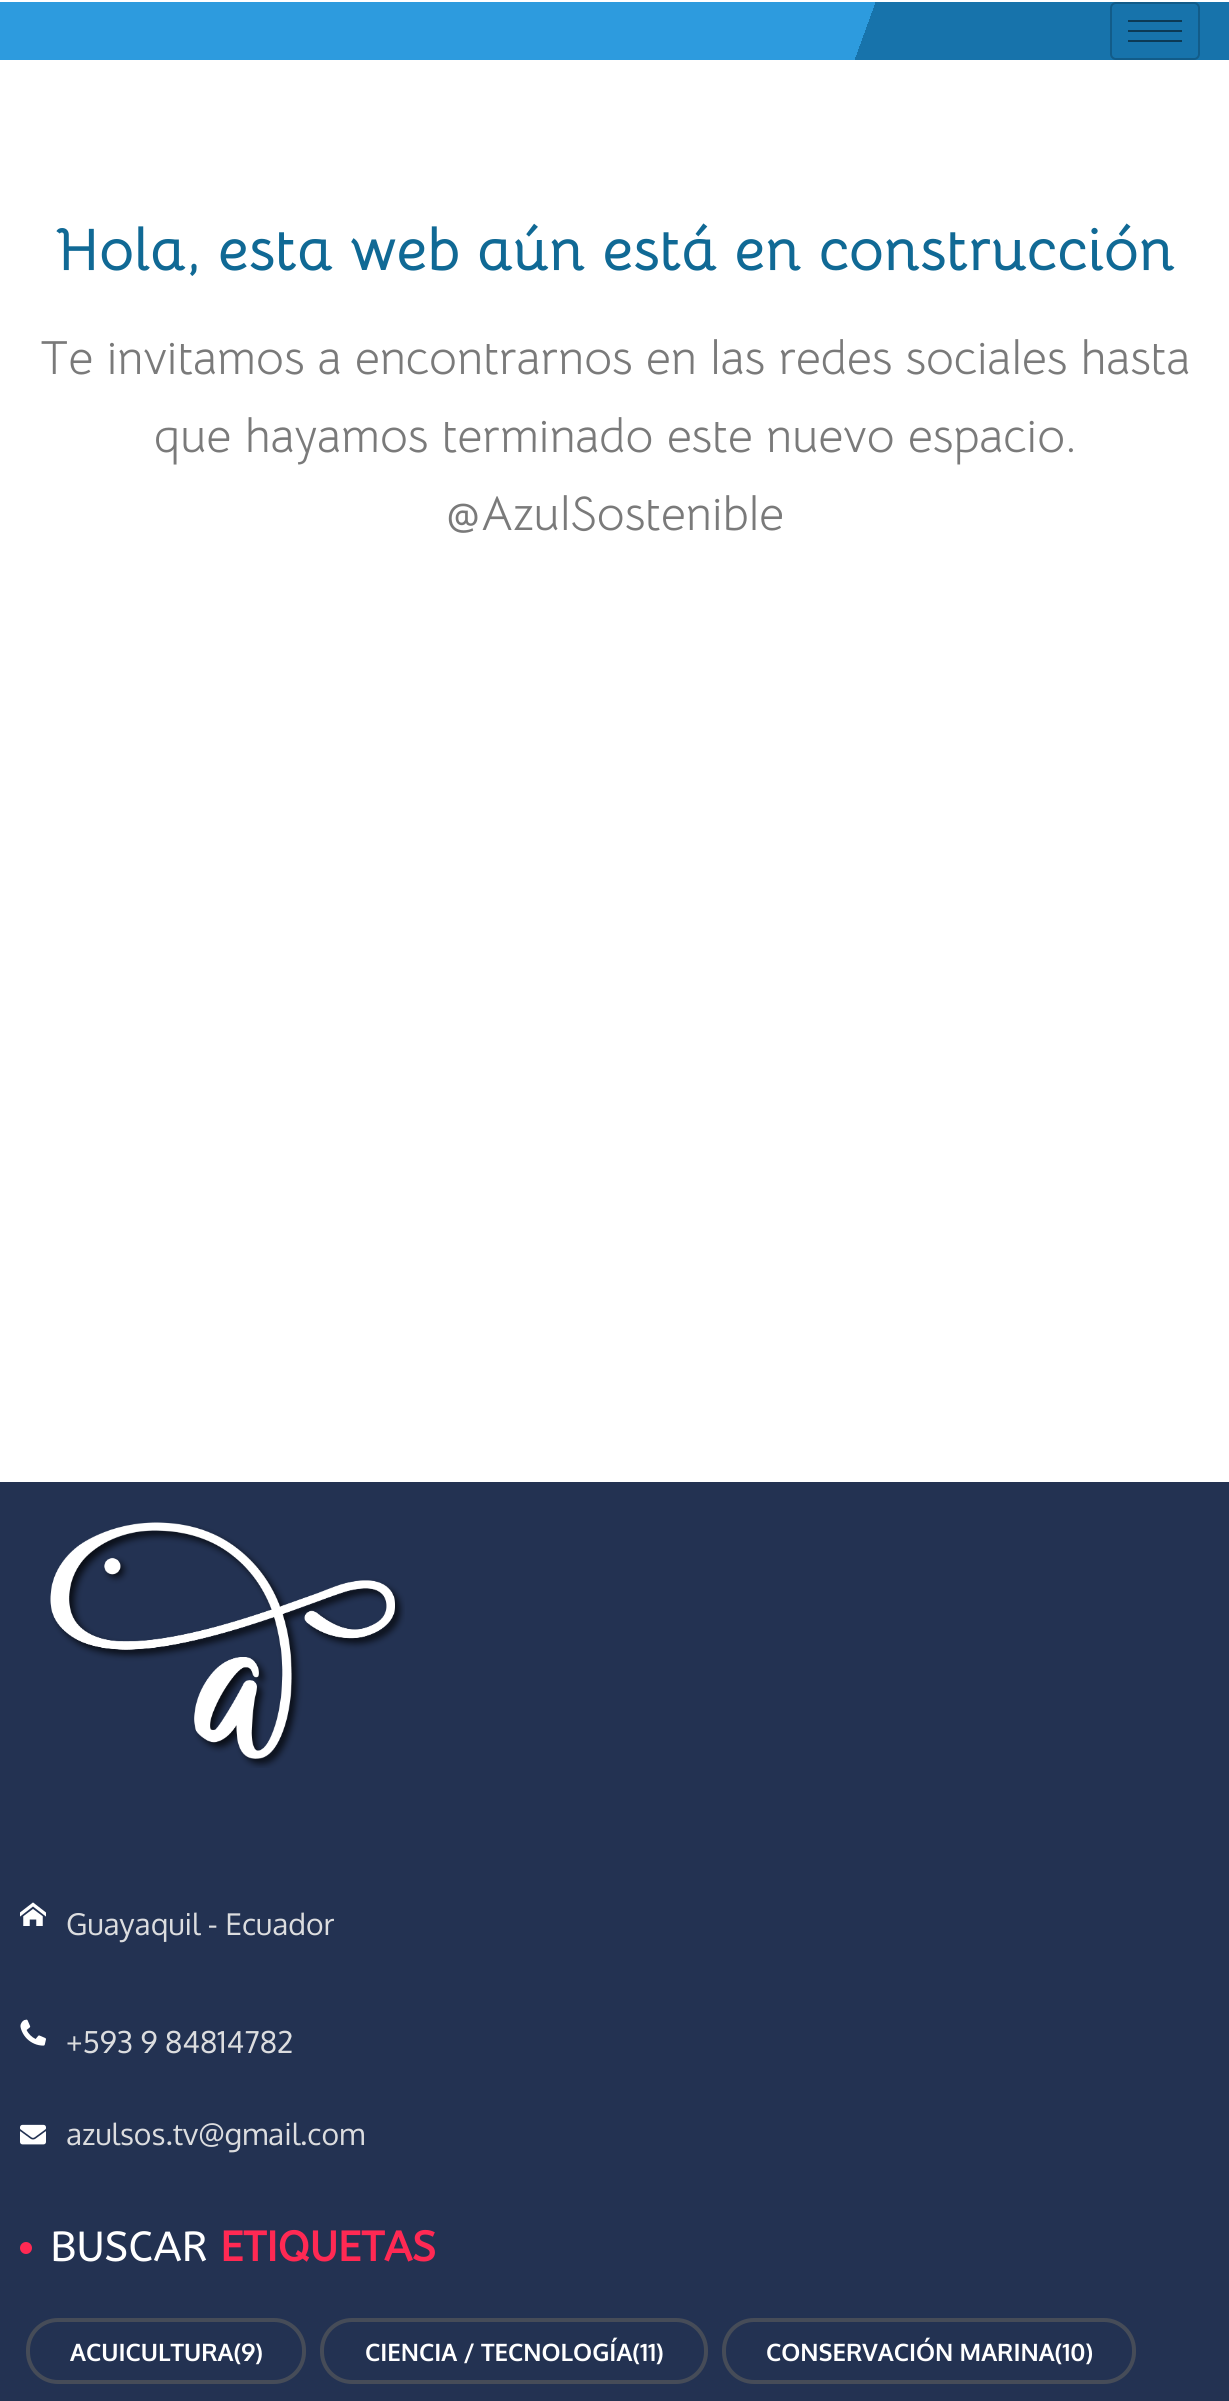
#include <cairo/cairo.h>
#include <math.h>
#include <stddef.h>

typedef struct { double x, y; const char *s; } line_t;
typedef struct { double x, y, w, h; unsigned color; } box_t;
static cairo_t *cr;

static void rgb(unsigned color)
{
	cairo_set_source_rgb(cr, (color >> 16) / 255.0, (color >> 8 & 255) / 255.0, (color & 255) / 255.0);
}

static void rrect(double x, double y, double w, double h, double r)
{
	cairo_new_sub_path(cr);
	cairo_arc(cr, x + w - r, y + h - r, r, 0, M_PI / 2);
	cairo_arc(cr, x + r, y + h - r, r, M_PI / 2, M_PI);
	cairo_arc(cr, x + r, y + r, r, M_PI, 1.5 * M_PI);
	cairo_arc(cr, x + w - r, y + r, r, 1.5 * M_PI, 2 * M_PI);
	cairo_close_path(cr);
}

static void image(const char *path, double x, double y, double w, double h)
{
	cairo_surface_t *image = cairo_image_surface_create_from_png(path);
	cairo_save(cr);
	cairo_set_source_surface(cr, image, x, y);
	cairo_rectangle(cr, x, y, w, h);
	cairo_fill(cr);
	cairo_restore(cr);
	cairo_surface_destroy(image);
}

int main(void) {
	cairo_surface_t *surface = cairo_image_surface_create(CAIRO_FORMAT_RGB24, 1229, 2401);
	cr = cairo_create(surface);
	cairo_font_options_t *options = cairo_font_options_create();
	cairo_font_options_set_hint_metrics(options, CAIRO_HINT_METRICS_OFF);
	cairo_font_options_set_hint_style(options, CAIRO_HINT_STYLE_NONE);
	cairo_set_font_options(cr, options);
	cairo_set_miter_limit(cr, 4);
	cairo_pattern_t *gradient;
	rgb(0xffffff);
	cairo_paint(cr);
	gradient = cairo_pattern_create_linear(63, -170, 1167, 232);
	cairo_pattern_add_color_stop_rgba(gradient, 0.7, 0.176, 0.608, 0.871, 1);
	cairo_pattern_add_color_stop_rgba(gradient, 0.7, 0.09, 0.451, 0.671, 1);
	cairo_set_source(cr, gradient);
	cairo_pattern_destroy(gradient);
	cairo_rectangle(cr, 0, 2, 1229, 58);
	cairo_fill(cr);
	rrect(1111, 3, 88, 56, 5);
	rgb(0x125c89);
	cairo_stroke(cr);
	{
		static const box_t items[] = {
			{1128, 20, 54, 2, 0x0c3a56},
			{1128, 30, 54, 2, 0x0c3a56},
			{1128, 40, 54, 2, 0x0c3a56},
			{0, 1482, 1229, 919, 0x233252},
		};
		for (size_t i = 0; i < sizeof items / sizeof *items; i++) {
			rgb(items[i].color);
			cairo_rectangle(cr, items[i].x, items[i].y, items[i].w, items[i].h);
			cairo_fill(cr);
		}
	}
	image("img/1.png", 50, 1522, 355, 246);
	image("img/2.png", 20, 1902, 26, 24);
	image("img/3.png", 20, 2019, 26, 27);
	image("img/4.png", 20, 2124, 26, 21);
	rgb(0xff2953);
	cairo_arc(cr, 26, 2248, 6, 0, 2 * M_PI);
	cairo_fill(cr);
	rrect(28, 2320, 276, 62, 30);
	rgb(0x464c58);
	cairo_set_line_width(cr, 4);
	cairo_stroke(cr);
	rrect(322, 2320, 384, 62, 30);
	cairo_stroke(cr);
	rrect(724, 2320, 410, 62, 30);
	cairo_stroke(cr);
	cairo_select_font_face(cr, "Bellota", CAIRO_FONT_SLANT_NORMAL, CAIRO_FONT_WEIGHT_BOLD);
	cairo_set_font_size(cr, 60);
	rgb(0x106995);
	cairo_move_to(cr, 56, 270);
	cairo_show_text(cr, "Hola, esta web aún está en construcción");
	cairo_select_font_face(cr, "Bellota Text", CAIRO_FONT_SLANT_NORMAL, CAIRO_FONT_WEIGHT_NORMAL);
	cairo_set_font_size(cr, 48);
	rgb(0x7a7a7a);
	{
		static const line_t items[] = {
			{40, 374, "Te invitamos a encontrarnos en las redes sociales hasta"},
			{154, 452, "que hayamos terminado este nuevo espacio."},
			{445, 530, "@AzulSostenible"},
		};
		for (size_t i = 0; i < sizeof items / sizeof *items; i++) {
			cairo_move_to(cr, items[i].x, items[i].y);
			cairo_show_text(cr, items[i].s);
		}
	}
	cairo_select_font_face(cr, "Oxygen", CAIRO_FONT_SLANT_NORMAL, CAIRO_FONT_WEIGHT_NORMAL);
	cairo_set_font_size(cr, 30);
	rgb(0xdcdddf);
	{
		static const line_t items[] = {
			{66, 1935, "Guayaquil - Ecuador"},
			{66, 2053, "+593 9 84814782"},
			{66, 2145, "azulsos.tv@gmail.com"},
		};
		for (size_t i = 0; i < sizeof items / sizeof *items; i++) {
			cairo_move_to(cr, items[i].x, items[i].y);
			cairo_show_text(cr, items[i].s);
		}
	}
	cairo_select_font_face(cr, "ABeeZee", CAIRO_FONT_SLANT_NORMAL, CAIRO_FONT_WEIGHT_NORMAL);
	cairo_set_font_size(cr, 42);
	rgb(0xffffff);
	cairo_move_to(cr, 50, 2261);
	cairo_show_text(cr, "BUSCAR");
	cairo_select_font_face(cr, "ABeeZee", CAIRO_FONT_SLANT_NORMAL, CAIRO_FONT_WEIGHT_BOLD);
	rgb(0xff2953);
	cairo_move_to(cr, 220, 2261);
	cairo_show_text(cr, "ETIQUETAS");
	cairo_select_font_face(cr, "Oxygen", CAIRO_FONT_SLANT_NORMAL, CAIRO_FONT_WEIGHT_BOLD);
	cairo_set_font_size(cr, 24);
	rgb(0xffffff);
	{
		static const line_t items[] = {
			{70, 2361, "ACUICULTURA(9)"},
			{365, 2361, "CIENCIA / TECNOLOGÍA(11)"},
			{766, 2361, "CONSERVACIÓN MARINA(10)"},
		};
		for (size_t i = 0; i < sizeof items / sizeof *items; i++) {
			cairo_move_to(cr, items[i].x, items[i].y);
			cairo_show_text(cr, items[i].s);
		}
	}
	cairo_surface_write_to_png(surface, "page.png");
	cairo_font_options_destroy(options);
	cairo_destroy(cr);
	cairo_surface_destroy(surface);
	return 0;
}
